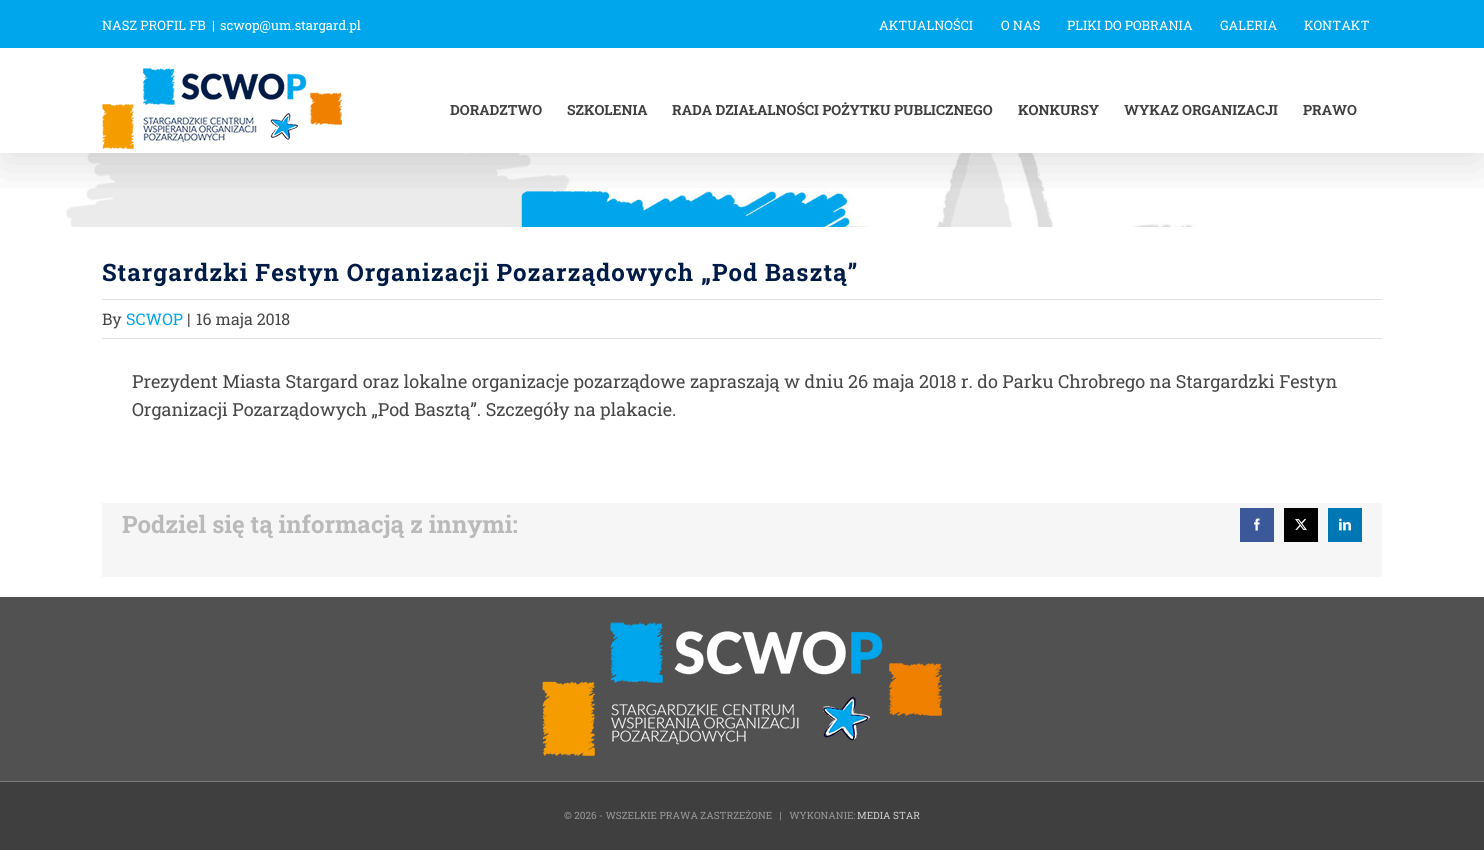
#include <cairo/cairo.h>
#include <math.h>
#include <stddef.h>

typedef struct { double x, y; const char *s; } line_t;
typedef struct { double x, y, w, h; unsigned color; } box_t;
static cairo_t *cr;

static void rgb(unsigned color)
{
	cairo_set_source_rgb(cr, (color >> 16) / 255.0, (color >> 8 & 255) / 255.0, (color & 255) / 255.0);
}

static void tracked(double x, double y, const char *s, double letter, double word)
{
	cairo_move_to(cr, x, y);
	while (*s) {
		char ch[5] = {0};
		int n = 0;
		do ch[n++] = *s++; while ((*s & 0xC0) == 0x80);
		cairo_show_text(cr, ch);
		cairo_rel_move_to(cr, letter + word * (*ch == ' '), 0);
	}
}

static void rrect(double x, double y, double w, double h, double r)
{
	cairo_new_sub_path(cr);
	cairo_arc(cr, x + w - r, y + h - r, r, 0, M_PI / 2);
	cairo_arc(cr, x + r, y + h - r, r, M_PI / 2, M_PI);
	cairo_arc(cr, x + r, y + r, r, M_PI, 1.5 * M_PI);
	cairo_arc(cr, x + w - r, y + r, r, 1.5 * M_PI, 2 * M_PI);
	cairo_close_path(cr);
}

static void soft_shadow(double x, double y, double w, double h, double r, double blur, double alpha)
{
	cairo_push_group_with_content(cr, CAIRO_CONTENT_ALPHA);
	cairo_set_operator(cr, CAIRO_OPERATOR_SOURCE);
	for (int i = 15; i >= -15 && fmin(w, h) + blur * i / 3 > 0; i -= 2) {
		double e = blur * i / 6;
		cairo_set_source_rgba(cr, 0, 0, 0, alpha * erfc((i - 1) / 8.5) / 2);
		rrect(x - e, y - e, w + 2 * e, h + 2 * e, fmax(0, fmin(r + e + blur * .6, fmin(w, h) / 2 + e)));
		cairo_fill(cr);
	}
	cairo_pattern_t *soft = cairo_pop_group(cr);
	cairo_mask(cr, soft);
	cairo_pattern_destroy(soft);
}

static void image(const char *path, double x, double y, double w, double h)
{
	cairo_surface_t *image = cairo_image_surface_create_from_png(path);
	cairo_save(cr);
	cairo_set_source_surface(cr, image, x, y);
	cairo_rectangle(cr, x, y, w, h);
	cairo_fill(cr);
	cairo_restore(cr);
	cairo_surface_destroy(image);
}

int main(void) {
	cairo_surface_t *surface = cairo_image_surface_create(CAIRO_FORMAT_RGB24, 1484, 850);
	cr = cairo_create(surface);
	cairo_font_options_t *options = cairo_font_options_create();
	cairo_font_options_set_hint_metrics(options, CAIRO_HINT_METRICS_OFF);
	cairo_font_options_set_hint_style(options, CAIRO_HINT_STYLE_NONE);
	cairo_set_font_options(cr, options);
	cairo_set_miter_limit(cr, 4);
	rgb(0xffffff);
	cairo_paint(cr);
	image("img/2.png", 66, 153, 1130, 74);
	cairo_save(cr);
	cairo_rectangle(cr, 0, 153, 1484, 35);
	cairo_clip(cr);
	rgb(0x000000);
	soft_shadow(2, 12, 1480, 149, 0, 25, 0.14);
	cairo_restore(cr);
	rgb(0x00a6eb);
	cairo_rectangle(cr, 0, 0, 1484, 48);
	cairo_fill(cr);
	image("img/1.png", 102, 68, 240, 81);
	{
		static const box_t items[] = {
			{102, 299, 1280, 1, 0xe0dede},
			{102, 338, 1280, 1, 0xe0dede},
			{102, 503, 1280, 74, 0xf6f6f6},
			{1240, 508, 34, 34, 0x3b5998},
		};
		for (size_t i = 0; i < sizeof items / sizeof *items; i++) {
			rgb(items[i].color);
			cairo_rectangle(cr, items[i].x, items[i].y, items[i].w, items[i].h);
			cairo_fill(cr);
		}
	}
	image("img/3.png", 1254, 518, 6, 13);
	rgb(0x000000);
	cairo_rectangle(cr, 1284, 508, 34, 34);
	cairo_fill(cr);
	image("img/4.png", 1295, 519, 12, 11);
	rgb(0x0077b5);
	cairo_rectangle(cr, 1328, 508, 34, 34);
	cairo_fill(cr);
	image("img/5.png", 1339, 518, 12, 13);
	rgb(0x515151);
	cairo_rectangle(cr, 0, 597, 1484, 184);
	cairo_fill(cr);
	image("img/6.png", 542, 622, 400, 134);
	rgb(0x3f3f3f);
	cairo_rectangle(cr, 0, 782, 1484, 68);
	cairo_fill(cr);
	rgb(0x7c7c7c);
	cairo_rectangle(cr, 0, 781, 1484, 1);
	cairo_fill(cr);
	cairo_select_font_face(cr, "Roboto Slab", CAIRO_FONT_SLANT_NORMAL, CAIRO_FONT_WEIGHT_NORMAL);
	cairo_set_font_size(cr, 13);
	rgb(0xffffff);
	{
		static const line_t items[] = {
			{102, 30, "NASZ PROFIL FB"},
			{212, 30, "|"},
			{220, 30, "scwop@um.stargard.pl"},
			{879, 30, "AKTUALNOŚCI"},
			{1001, 30, "O NAS"},
			{1067, 30, "PLIKI DO POBRANIA"},
			{1220, 30, "GALERIA"},
			{1304, 30, "KONTAKT"},
		};
		for (size_t i = 0; i < sizeof items / sizeof *items; i++) {
			cairo_move_to(cr, items[i].x, items[i].y);
			cairo_show_text(cr, items[i].s);
		}
	}
	cairo_select_font_face(cr, "Roboto Slab", CAIRO_FONT_SLANT_NORMAL, CAIRO_FONT_WEIGHT_BOLD);
	cairo_set_font_size(cr, 14);
	rgb(0x3f3f3f);
	{
		static const line_t items[] = {
			{450, 115, "DORADZTWO"},
			{567, 115, "SZKOLENIA"},
			{672, 115, "RADA DZIAŁALNOŚCI POŻYTKU PUBLICZNEGO"},
			{1018, 115, "KONKURSY"},
			{1124, 115, "WYKAZ ORGANIZACJI"},
			{1303, 115, "PRAWO"},
		};
		for (size_t i = 0; i < sizeof items / sizeof *items; i++) {
			cairo_move_to(cr, items[i].x, items[i].y);
			cairo_show_text(cr, items[i].s);
		}
	}
	cairo_set_font_size(cr, 24);
	rgb(0x001b46);
	tracked(102, 281, "Stargardzki Festyn Organizacji Pozarządowych „Pod Basztą”", 1, 0);
	cairo_select_font_face(cr, "Roboto Slab", CAIRO_FONT_SLANT_NORMAL, CAIRO_FONT_WEIGHT_NORMAL);
	cairo_set_font_size(cr, 16);
	rgb(0x474747);
	cairo_move_to(cr, 102, 325);
	cairo_show_text(cr, "By");
	rgb(0x00a6eb);
	cairo_move_to(cr, 126, 325);
	cairo_show_text(cr, "SCWOP");
	rgb(0x474747);
	cairo_move_to(cr, 187, 325);
	cairo_show_text(cr, "|");
	cairo_move_to(cr, 196, 325);
	cairo_show_text(cr, "16 maja 2018");
	cairo_set_font_size(cr, 18);
	cairo_move_to(cr, 132, 388);
	cairo_show_text(cr, "Prezydent Miasta Stargard oraz lokalne organizacje pozarządowe zapraszają w dniu 26 maja 2018 r. do Parku Chrobrego na Stargardzki Festyn");
	cairo_move_to(cr, 132, 416);
	cairo_show_text(cr, "Organizacji Pozarządowych „Pod Basztą”. Szczegóły na plakacie.");
	cairo_select_font_face(cr, "Roboto Slab", CAIRO_FONT_SLANT_NORMAL, CAIRO_FONT_WEIGHT_BOLD);
	cairo_set_font_size(cr, 24);
	rgb(0xbababa);
	cairo_move_to(cr, 122, 533);
	cairo_show_text(cr, "Podziel się tą informacją z innymi:");
	cairo_select_font_face(cr, "Roboto Slab", CAIRO_FONT_SLANT_NORMAL, CAIRO_FONT_WEIGHT_NORMAL);
	cairo_set_font_size(cr, 10);
	rgb(0x999999);
	cairo_move_to(cr, 564, 819);
	cairo_show_text(cr, "© 2026 - WSZELKIE PRAWA ZASTRZEŻONE   |   WYKONANIE:");
	rgb(0xcecece);
	cairo_move_to(cr, 857, 819);
	cairo_show_text(cr, "MEDIA STAR");
	cairo_surface_write_to_png(surface, "page.png");
	cairo_font_options_destroy(options);
	cairo_destroy(cr);
	cairo_surface_destroy(surface);
	return 0;
}
